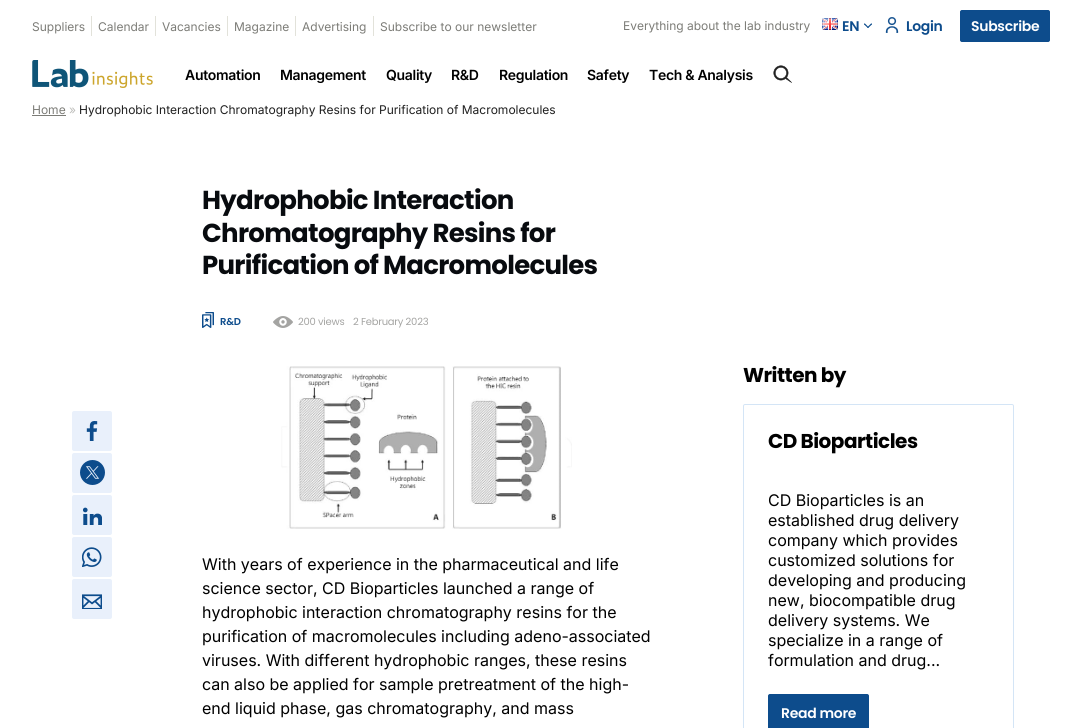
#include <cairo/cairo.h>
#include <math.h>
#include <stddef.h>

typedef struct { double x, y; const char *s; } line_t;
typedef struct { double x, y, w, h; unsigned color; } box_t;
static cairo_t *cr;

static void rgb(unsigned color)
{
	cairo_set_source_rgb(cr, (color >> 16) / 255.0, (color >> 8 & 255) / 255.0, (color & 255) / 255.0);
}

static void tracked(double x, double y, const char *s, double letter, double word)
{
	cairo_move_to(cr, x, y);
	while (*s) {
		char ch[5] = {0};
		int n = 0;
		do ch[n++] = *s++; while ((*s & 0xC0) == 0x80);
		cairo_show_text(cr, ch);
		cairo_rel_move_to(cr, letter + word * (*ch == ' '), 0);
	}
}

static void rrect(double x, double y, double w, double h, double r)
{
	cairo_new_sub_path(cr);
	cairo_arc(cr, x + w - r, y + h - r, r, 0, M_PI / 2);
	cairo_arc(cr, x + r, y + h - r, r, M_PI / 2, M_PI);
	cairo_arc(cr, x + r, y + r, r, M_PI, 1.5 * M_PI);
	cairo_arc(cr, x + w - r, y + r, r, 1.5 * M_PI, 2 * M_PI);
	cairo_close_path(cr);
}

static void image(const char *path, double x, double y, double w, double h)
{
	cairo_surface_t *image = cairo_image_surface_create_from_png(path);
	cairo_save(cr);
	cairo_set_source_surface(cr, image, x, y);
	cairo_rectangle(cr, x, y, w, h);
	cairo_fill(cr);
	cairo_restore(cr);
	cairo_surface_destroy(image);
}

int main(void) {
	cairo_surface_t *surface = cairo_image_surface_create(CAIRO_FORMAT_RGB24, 1082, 728);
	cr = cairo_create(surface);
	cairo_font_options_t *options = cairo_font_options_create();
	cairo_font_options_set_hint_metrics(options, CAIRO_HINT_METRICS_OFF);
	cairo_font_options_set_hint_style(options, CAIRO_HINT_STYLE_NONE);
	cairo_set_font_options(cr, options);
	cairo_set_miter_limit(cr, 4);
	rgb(0xffffff);
	cairo_paint(cr);
	{
		static const box_t items[] = {
			{91, 16, 1, 20, 0xe2e2da},
			{155, 16, 1, 20, 0xe2e2da},
			{227, 16, 1, 20, 0xe2e2da},
			{295, 16, 1, 20, 0xe2e2da},
			{373, 16, 1, 20, 0xe2e2da},
		};
		for (size_t i = 0; i < sizeof items / sizeof *items; i++) {
			rgb(items[i].color);
			cairo_rectangle(cr, items[i].x, items[i].y, items[i].w, items[i].h);
			cairo_fill(cr);
		}
	}
	image("img/1.png", 822, 18, 16, 12);
	image("img/2.png", 864, 23, 8, 5);
	image("img/3.png", 885, 17, 14, 16);
	rgb(0x0d4c8c);
	rrect(960.5, 10.5, 89, 31, 1.5);
	cairo_fill_preserve(cr);
	cairo_set_line_width(cr, 1);
	cairo_stroke(cr);
	image("img/4.png", 32, 60, 121, 28);
	image("img/5.png", 773, 65, 19, 18);
	rgb(0x7c7c77);
	cairo_rectangle(cr, 32, 115, 34, 1);
	cairo_fill(cr);
	image("img/6.png", 202, 312, 12, 16);
	image("img/7.png", 273, 316, 20, 12);
	rgb(0xe9f0fb);
	rrect(72, 411, 40, 40, 2);
	cairo_fill(cr);
	image("img/8.png", 86, 421, 12, 20);
	rrect(72, 453, 40, 40, 2);
	cairo_fill(cr);
	image("img/9.png", 80, 460, 25, 25);
	rrect(72, 495, 40, 40, 2);
	cairo_fill(cr);
	image("img/10.png", 83, 507, 19, 18);
	rrect(72, 537, 40, 40, 2);
	cairo_fill(cr);
	image("img/11.png", 82, 547, 20, 20);
	rrect(72, 579, 40, 40, 2);
	cairo_fill(cr);
	image("img/12.png", 82, 594, 20, 15);
	rrect(743.5, 404.5, 270, 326, 1.5);
	rgb(0xd4e5f6);
	cairo_stroke(cr);
	rgb(0x0d4c8c);
	rrect(768.5, 694.5, 100, 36, 1.5);
	cairo_fill_preserve(cr);
	cairo_stroke(cr);
	image("img/13.png", 281, 366, 291, 163);
	cairo_select_font_face(cr, "Inter", CAIRO_FONT_SLANT_NORMAL, CAIRO_FONT_WEIGHT_NORMAL);
	cairo_set_font_size(cr, 12);
	rgb(0x7c7c77);
	{
		static const line_t items[] = {
			{32, 31, "Suppliers"},
			{98, 31, "Calendar"},
			{162, 31, "Vacancies"},
			{234, 31, "Magazine"},
			{302, 31, "Advertising"},
			{380, 31, "Subscribe to our newsletter"},
			{623, 30, "Everything about the lab industry"},
		};
		for (size_t i = 0; i < sizeof items / sizeof *items; i++) {
			cairo_move_to(cr, items[i].x, items[i].y);
			cairo_show_text(cr, items[i].s);
		}
	}
	cairo_select_font_face(cr, "Poppins SemiBold", CAIRO_FONT_SLANT_NORMAL, CAIRO_FONT_WEIGHT_NORMAL);
	cairo_set_font_size(cr, 14);
	rgb(0x0d4c8c);
	tracked(842, 31, "EN", -0.3, 0);
	tracked(906, 31, "Login", -0.3, 0);
	rgb(0xffffff);
	tracked(971, 31, "Subscribe", -0.3, 0);
	cairo_select_font_face(cr, "Inter SemiBold", CAIRO_FONT_SLANT_NORMAL, CAIRO_FONT_WEIGHT_NORMAL);
	rgb(0x000000);
	{
		static const line_t items[] = {
			{185, 80, "Automation"},
			{280, 80, "Management"},
			{386, 80, "Quality"},
			{451, 80, "R&D"},
			{499, 80, "Regulation"},
			{587, 80, "Safety"},
			{649, 80, "Tech & Analysis"},
		};
		for (size_t i = 0; i < sizeof items / sizeof *items; i++) {
			tracked(items[i].x, items[i].y, items[i].s, -0.3, 0);
		}
	}
	cairo_select_font_face(cr, "Inter", CAIRO_FONT_SLANT_NORMAL, CAIRO_FONT_WEIGHT_NORMAL);
	cairo_set_font_size(cr, 12);
	rgb(0x7c7c77);
	cairo_move_to(cr, 32, 114);
	cairo_show_text(cr, "Home");
	rgb(0xbebebb);
	cairo_move_to(cr, 69, 114);
	cairo_show_text(cr, "»");
	rgb(0x1f1f1f);
	cairo_move_to(cr, 79, 114);
	cairo_show_text(cr, "Hydrophobic Interaction Chromatography Resins for Purification of Macromolecules");
	cairo_select_font_face(cr, "Poppins", CAIRO_FONT_SLANT_NORMAL, CAIRO_FONT_WEIGHT_BOLD);
	cairo_set_font_size(cr, 26);
	rgb(0x080b0f);
	{
		static const line_t items[] = {
			{202, 209, "Hydrophobic Interaction"},
			{202, 242, "Chromatography Resins for"},
			{202, 274, "Purification of Macromolecules"},
		};
		for (size_t i = 0; i < sizeof items / sizeof *items; i++) {
			tracked(items[i].x, items[i].y, items[i].s, -0.7, 0);
		}
	}
	cairo_select_font_face(cr, "Poppins SemiBold", CAIRO_FONT_SLANT_NORMAL, CAIRO_FONT_WEIGHT_NORMAL);
	cairo_set_font_size(cr, 10);
	rgb(0x0d4c8c);
	tracked(220, 325, "R&D", -0.25, 0);
	cairo_select_font_face(cr, "Poppins", CAIRO_FONT_SLANT_NORMAL, CAIRO_FONT_WEIGHT_NORMAL);
	rgb(0xa4a4a2);
	tracked(298, 325, "200 views", -0.25, 0);
	tracked(353, 325, "2 February 2023", -0.25, 0);
	cairo_select_font_face(cr, "Poppins", CAIRO_FONT_SLANT_NORMAL, CAIRO_FONT_WEIGHT_BOLD);
	cairo_set_font_size(cr, 20);
	rgb(0x000000);
	tracked(743, 382, "Written by", -0.5, 0);
	tracked(768, 448, "CD Bioparticles", -0.5, 0);
	cairo_select_font_face(cr, "Inter", CAIRO_FONT_SLANT_NORMAL, CAIRO_FONT_WEIGHT_NORMAL);
	cairo_set_font_size(cr, 16);
	{
		static const line_t items[] = {
			{768, 506, "CD Bioparticles is an"},
			{768, 526, "established drug delivery"},
			{768, 546, "company which provides"},
			{768, 566, "customized solutions for"},
			{768, 586, "developing and producing"},
			{768, 606, "new, biocompatible drug"},
			{768, 626, "delivery systems. We"},
			{768, 646, "specialize in a range of"},
			{768, 666, "formulation and drug..."},
		};
		for (size_t i = 0; i < sizeof items / sizeof *items; i++) {
			cairo_move_to(cr, items[i].x, items[i].y);
			cairo_show_text(cr, items[i].s);
		}
	}
	cairo_select_font_face(cr, "Poppins SemiBold", CAIRO_FONT_SLANT_NORMAL, CAIRO_FONT_WEIGHT_NORMAL);
	cairo_set_font_size(cr, 14);
	rgb(0xffffff);
	tracked(781, 718, "Read more", -0.3, 0);
	cairo_select_font_face(cr, "Inter", CAIRO_FONT_SLANT_NORMAL, CAIRO_FONT_WEIGHT_NORMAL);
	cairo_set_font_size(cr, 16);
	rgb(0x000000);
	{
		static const line_t items[] = {
			{202, 570, "With years of experience in the pharmaceutical and life"},
			{202, 594, "science sector, CD Bioparticles launched a range of"},
			{202, 618, "hydrophobic interaction chromatography resins for the"},
			{202, 642, "purification of macromolecules including adeno-associated"},
			{202, 666, "viruses. With different hydrophobic ranges, these resins"},
			{202, 690, "can also be applied for sample pretreatment of the high-"},
			{202, 714, "end liquid phase, gas chromatography, and mass"},
		};
		for (size_t i = 0; i < sizeof items / sizeof *items; i++) {
			cairo_move_to(cr, items[i].x, items[i].y);
			cairo_show_text(cr, items[i].s);
		}
	}
	cairo_surface_write_to_png(surface, "page.png");
	cairo_font_options_destroy(options);
	cairo_destroy(cr);
	cairo_surface_destroy(surface);
	return 0;
}
